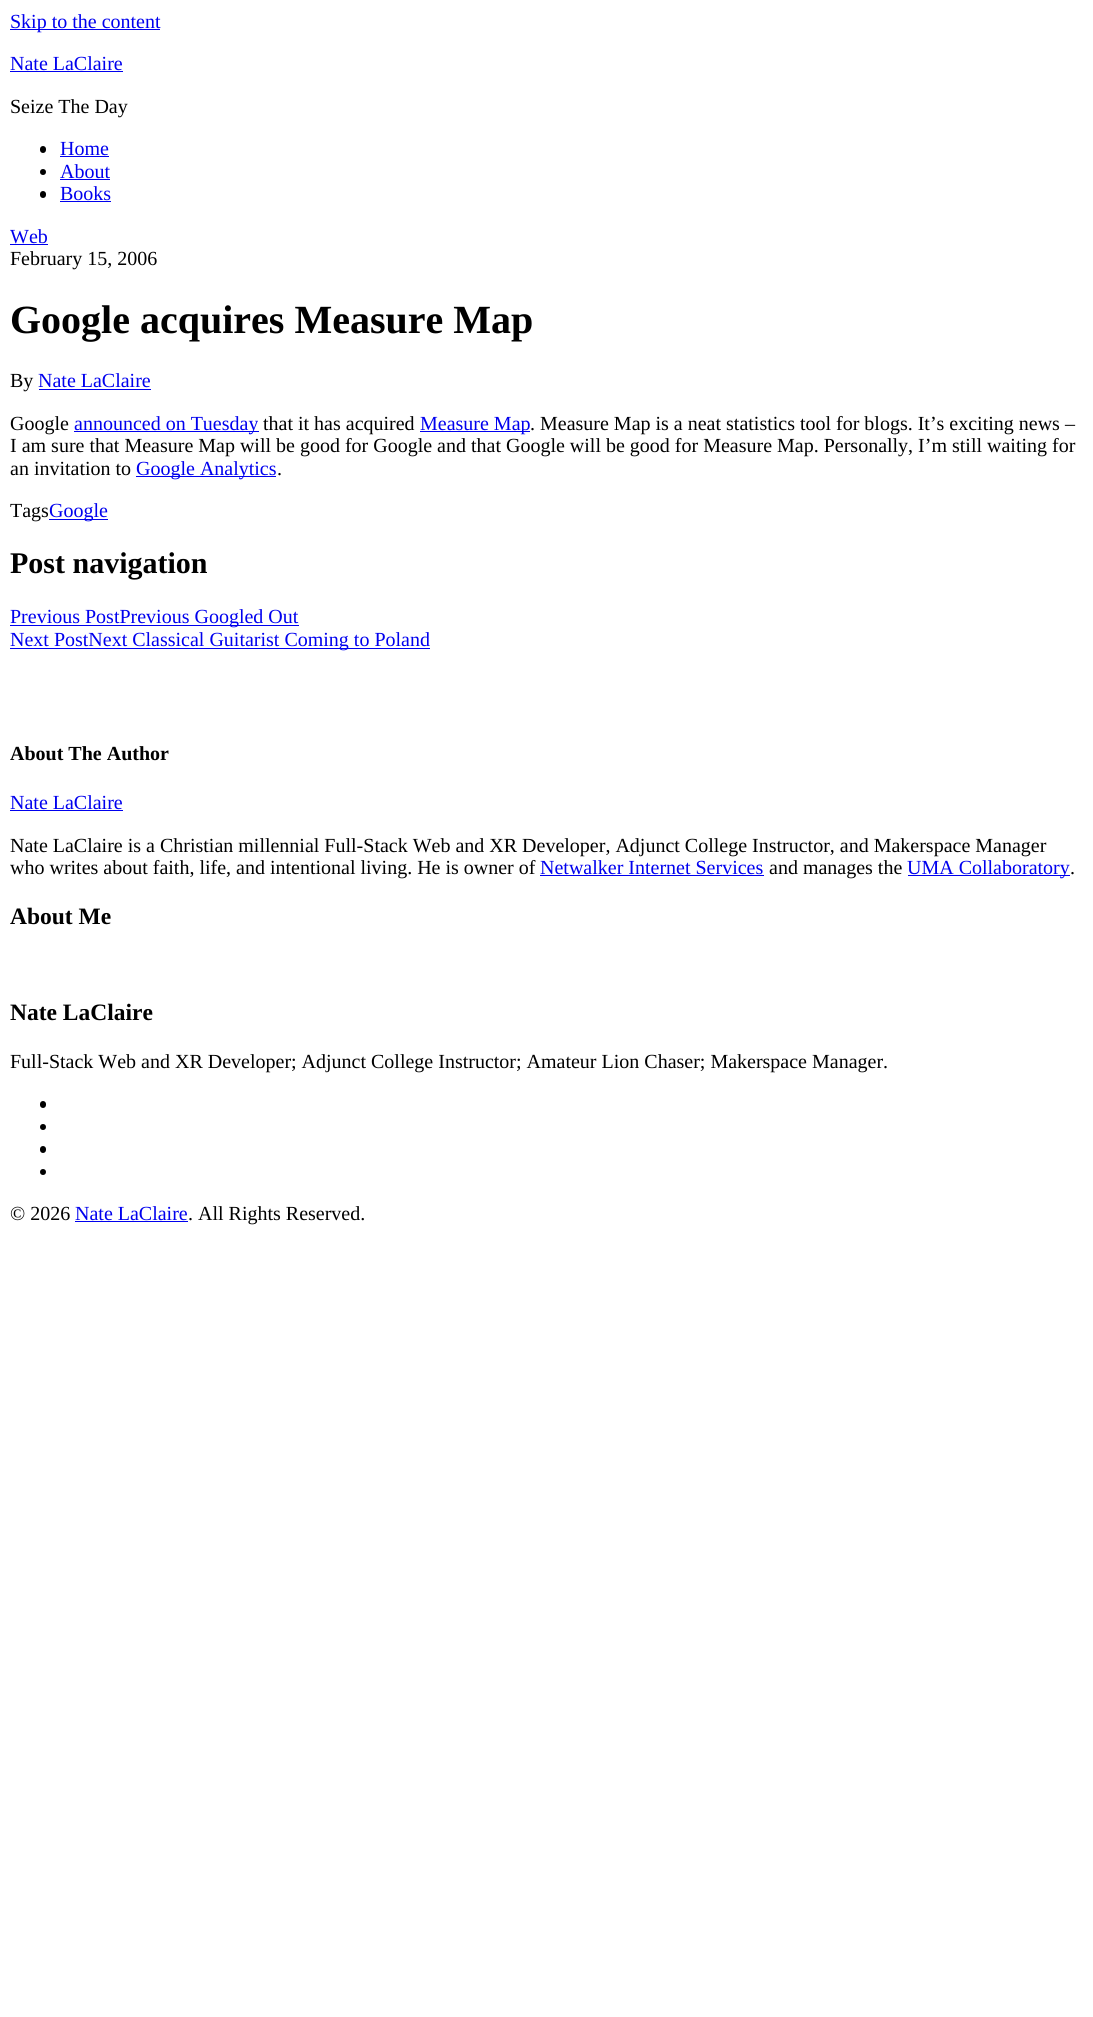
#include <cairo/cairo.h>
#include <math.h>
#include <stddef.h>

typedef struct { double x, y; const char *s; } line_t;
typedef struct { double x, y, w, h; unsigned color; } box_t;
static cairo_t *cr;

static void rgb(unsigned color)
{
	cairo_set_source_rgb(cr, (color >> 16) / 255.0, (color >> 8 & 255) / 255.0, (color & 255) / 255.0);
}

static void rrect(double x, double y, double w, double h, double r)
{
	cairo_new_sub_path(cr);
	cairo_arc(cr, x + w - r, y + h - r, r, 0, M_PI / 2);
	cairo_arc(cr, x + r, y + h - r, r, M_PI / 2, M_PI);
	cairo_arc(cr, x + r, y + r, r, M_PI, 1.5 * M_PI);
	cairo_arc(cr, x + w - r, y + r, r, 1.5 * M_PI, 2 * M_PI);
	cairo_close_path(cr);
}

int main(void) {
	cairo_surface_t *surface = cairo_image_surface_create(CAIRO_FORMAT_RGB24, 1093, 2017);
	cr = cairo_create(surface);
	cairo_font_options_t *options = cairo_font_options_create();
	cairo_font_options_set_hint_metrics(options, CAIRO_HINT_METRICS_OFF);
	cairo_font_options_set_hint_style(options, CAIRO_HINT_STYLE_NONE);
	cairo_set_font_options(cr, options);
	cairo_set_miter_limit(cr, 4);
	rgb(0xffffff);
	cairo_paint(cr);
	rgb(0x0000ee);
	cairo_rectangle(cr, 10, 29, 150, 1);
	cairo_fill(cr);
	cairo_rectangle(cr, 10, 71, 113, 1);
	cairo_fill(cr);
	rgb(0x000000);
	rrect(40, 146, 6, 7, 3);
	cairo_fill(cr);
	rgb(0x0000ee);
	cairo_rectangle(cr, 60, 156, 49, 1);
	cairo_fill(cr);
	rgb(0x000000);
	cairo_arc(cr, 43, 172, 3, 0, 2 * M_PI);
	cairo_fill(cr);
	rgb(0x0000ee);
	cairo_rectangle(cr, 60, 179, 50, 1);
	cairo_fill(cr);
	rgb(0x000000);
	rrect(40, 191, 6, 7, 3);
	cairo_fill(cr);
	{
		static const box_t items[] = {
			{60, 201, 51, 1, 0x0000ee},
			{10, 244, 38, 1, 0x0000ee},
			{39, 389, 112, 1, 0x0000ee},
			{74, 431, 185, 1, 0x0000ee},
			{420, 431, 110, 1, 0x0000ee},
			{136, 476, 140, 1, 0x0000ee},
			{49, 519, 59, 1, 0x0000ee},
			{10, 625, 289, 1, 0x0000ee},
			{10, 648, 420, 1, 0x0000ee},
			{10, 810, 113, 1, 0x0000ee},
			{540, 875, 224, 1, 0x0000ee},
			{908, 875, 162, 1, 0x0000ee},
		};
		for (size_t i = 0; i < sizeof items / sizeof *items; i++) {
			rgb(items[i].color);
			cairo_rectangle(cr, items[i].x, items[i].y, items[i].w, items[i].h);
			cairo_fill(cr);
		}
	}
	rgb(0x000000);
	rrect(40, 1101, 6, 7, 3);
	cairo_fill(cr);
	cairo_arc(cr, 43, 1127, 3, 0, 2 * M_PI);
	cairo_fill(cr);
	rrect(40, 1146, 6, 7, 3);
	cairo_fill(cr);
	cairo_arc(cr, 43, 1172, 3, 0, 2 * M_PI);
	cairo_fill(cr);
	rgb(0x0000ee);
	cairo_rectangle(cr, 75, 1221, 113, 1);
	cairo_fill(cr);
	cairo_select_font_face(cr, "Liberation Serif", CAIRO_FONT_SLANT_NORMAL, CAIRO_FONT_WEIGHT_NORMAL);
	cairo_set_font_size(cr, 20);
	cairo_move_to(cr, 10, 28);
	cairo_show_text(cr, "Skip to the content");
	cairo_move_to(cr, 10, 70);
	cairo_show_text(cr, "Nate LaClaire");
	rgb(0x000000);
	cairo_move_to(cr, 10, 113);
	cairo_show_text(cr, "Seize The Day");
	rgb(0x0000ee);
	{
		static const line_t items[] = {
			{60, 155, "Home"},
			{60, 178, "About"},
			{60, 200, "Books"},
			{10, 243, "Web"},
		};
		for (size_t i = 0; i < sizeof items / sizeof *items; i++) {
			cairo_move_to(cr, items[i].x, items[i].y);
			cairo_show_text(cr, items[i].s);
		}
	}
	rgb(0x000000);
	cairo_move_to(cr, 10, 265);
	cairo_show_text(cr, "February 15, 2006");
	cairo_select_font_face(cr, "Liberation Serif", CAIRO_FONT_SLANT_NORMAL, CAIRO_FONT_WEIGHT_BOLD);
	cairo_set_font_size(cr, 40);
	cairo_move_to(cr, 10, 333);
	cairo_show_text(cr, "Google acquires Measure Map");
	cairo_select_font_face(cr, "Liberation Serif", CAIRO_FONT_SLANT_NORMAL, CAIRO_FONT_WEIGHT_NORMAL);
	cairo_set_font_size(cr, 20);
	cairo_move_to(cr, 10, 387);
	cairo_show_text(cr, "By");
	rgb(0x0000ee);
	cairo_move_to(cr, 38, 387);
	cairo_show_text(cr, "Nate LaClaire");
	rgb(0x000000);
	cairo_move_to(cr, 10, 430);
	cairo_show_text(cr, "Google");
	rgb(0x0000ee);
	cairo_move_to(cr, 74, 430);
	cairo_show_text(cr, "announced on Tuesday");
	rgb(0x000000);
	cairo_move_to(cr, 263, 430);
	cairo_show_text(cr, "that it has acquired");
	rgb(0x0000ee);
	cairo_move_to(cr, 420, 430);
	cairo_show_text(cr, "Measure Map");
	rgb(0x000000);
	{
		static const line_t items[] = {
			{530, 430, ". Measure Map is a neat statistics tool for blogs. It’s exciting news –"},
			{10, 452, "I am sure that Measure Map will be good for Google and that Google will be good for Measure Map. Personally, I’m still waiting for"},
			{10, 475, "an invitation to"},
		};
		for (size_t i = 0; i < sizeof items / sizeof *items; i++) {
			cairo_move_to(cr, items[i].x, items[i].y);
			cairo_show_text(cr, items[i].s);
		}
	}
	rgb(0x0000ee);
	cairo_move_to(cr, 136, 475);
	cairo_show_text(cr, "Google Analytics");
	rgb(0x000000);
	cairo_move_to(cr, 277, 475);
	cairo_show_text(cr, ".");
	cairo_move_to(cr, 10, 517);
	cairo_show_text(cr, "Tags");
	rgb(0x0000ee);
	cairo_move_to(cr, 49, 517);
	cairo_show_text(cr, "Google");
	cairo_select_font_face(cr, "Liberation Serif", CAIRO_FONT_SLANT_NORMAL, CAIRO_FONT_WEIGHT_BOLD);
	cairo_set_font_size(cr, 30);
	rgb(0x000000);
	cairo_move_to(cr, 10, 573);
	cairo_show_text(cr, "Post navigation");
	cairo_select_font_face(cr, "Liberation Serif", CAIRO_FONT_SLANT_NORMAL, CAIRO_FONT_WEIGHT_NORMAL);
	cairo_set_font_size(cr, 20);
	rgb(0x0000ee);
	cairo_move_to(cr, 10, 623);
	cairo_show_text(cr, "Previous PostPrevious Googled Out");
	cairo_move_to(cr, 10, 646);
	cairo_show_text(cr, "Next PostNext Classical Guitarist Coming to Poland");
	cairo_select_font_face(cr, "Liberation Serif", CAIRO_FONT_SLANT_NORMAL, CAIRO_FONT_WEIGHT_BOLD);
	rgb(0x000000);
	cairo_move_to(cr, 10, 760);
	cairo_show_text(cr, "About The Author");
	cairo_select_font_face(cr, "Liberation Serif", CAIRO_FONT_SLANT_NORMAL, CAIRO_FONT_WEIGHT_NORMAL);
	rgb(0x0000ee);
	cairo_move_to(cr, 10, 809);
	cairo_show_text(cr, "Nate LaClaire");
	rgb(0x000000);
	cairo_move_to(cr, 10, 852);
	cairo_show_text(cr, "Nate LaClaire is a Christian millennial Full-Stack Web and XR Developer, Adjunct College Instructor, and Makerspace Manager");
	cairo_move_to(cr, 10, 874);
	cairo_show_text(cr, "who writes about faith, life, and intentional living. He is owner of");
	rgb(0x0000ee);
	cairo_move_to(cr, 540, 874);
	cairo_show_text(cr, "Netwalker Internet Services");
	rgb(0x000000);
	cairo_move_to(cr, 769, 874);
	cairo_show_text(cr, "and manages the");
	rgb(0x0000ee);
	cairo_move_to(cr, 907, 874);
	cairo_show_text(cr, "UMA Collaboratory");
	rgb(0x000000);
	cairo_move_to(cr, 1070, 874);
	cairo_show_text(cr, ".");
	cairo_select_font_face(cr, "Liberation Serif", CAIRO_FONT_SLANT_NORMAL, CAIRO_FONT_WEIGHT_BOLD);
	cairo_set_font_size(cr, 23.5);
	cairo_move_to(cr, 10, 924);
	cairo_show_text(cr, "About Me");
	cairo_move_to(cr, 10, 1020);
	cairo_show_text(cr, "Nate LaClaire");
	cairo_select_font_face(cr, "Liberation Serif", CAIRO_FONT_SLANT_NORMAL, CAIRO_FONT_WEIGHT_NORMAL);
	cairo_set_font_size(cr, 20);
	cairo_move_to(cr, 10, 1068);
	cairo_show_text(cr, "Full-Stack Web and XR Developer; Adjunct College Instructor; Amateur Lion Chaser; Makerspace Manager.");
	cairo_move_to(cr, 10, 1220);
	cairo_show_text(cr, "© 2026");
	rgb(0x0000ee);
	cairo_move_to(cr, 75, 1220);
	cairo_show_text(cr, "Nate LaClaire");
	rgb(0x000000);
	cairo_move_to(cr, 188, 1220);
	cairo_show_text(cr, ". All Rights Reserved.");
	cairo_surface_write_to_png(surface, "page.png");
	cairo_font_options_destroy(options);
	cairo_destroy(cr);
	cairo_surface_destroy(surface);
	return 0;
}
